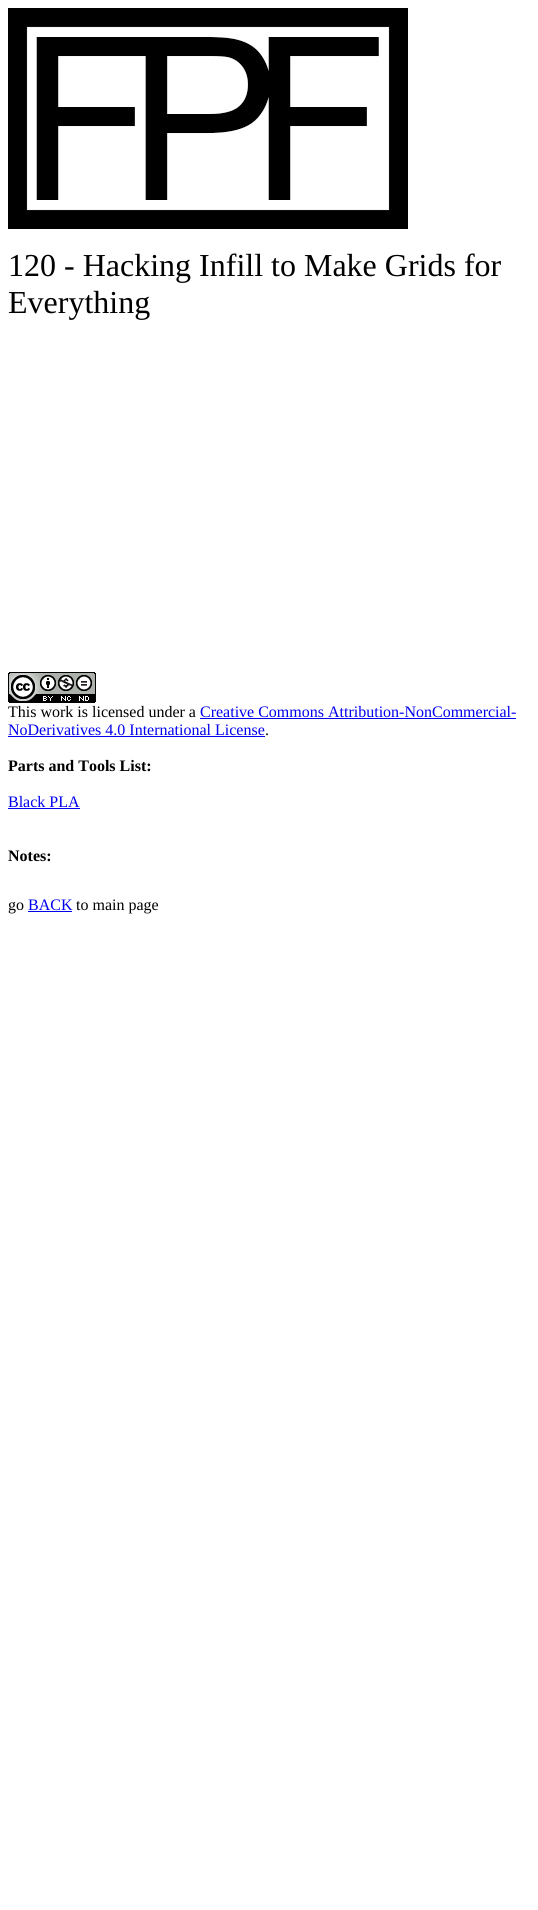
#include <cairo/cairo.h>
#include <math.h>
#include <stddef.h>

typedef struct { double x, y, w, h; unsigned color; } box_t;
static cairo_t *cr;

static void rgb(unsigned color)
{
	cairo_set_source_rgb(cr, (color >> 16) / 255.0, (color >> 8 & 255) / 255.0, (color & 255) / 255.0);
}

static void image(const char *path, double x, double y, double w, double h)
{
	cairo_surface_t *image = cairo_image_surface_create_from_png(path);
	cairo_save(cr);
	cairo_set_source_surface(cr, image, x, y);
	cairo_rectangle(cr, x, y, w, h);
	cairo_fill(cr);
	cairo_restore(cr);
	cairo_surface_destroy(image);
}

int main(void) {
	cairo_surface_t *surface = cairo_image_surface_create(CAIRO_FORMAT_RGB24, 538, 1910);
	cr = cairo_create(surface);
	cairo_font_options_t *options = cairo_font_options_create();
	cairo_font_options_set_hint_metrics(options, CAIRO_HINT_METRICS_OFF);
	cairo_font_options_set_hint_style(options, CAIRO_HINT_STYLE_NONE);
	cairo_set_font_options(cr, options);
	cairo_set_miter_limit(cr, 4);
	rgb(0xffffff);
	cairo_paint(cr);
	image("img/1.png", 8, 8, 400, 221);
	image("img/2.png", 8, 672, 88, 31);
	{
		static const box_t items[] = {
			{200, 718, 316, 1, 0x0000ee},
			{8, 736, 257, 1, 0x0000ee},
			{8, 808, 72, 1, 0x0000ee},
			{28, 911, 44, 1, 0x0000ee},
		};
		for (size_t i = 0; i < sizeof items / sizeof *items; i++) {
			rgb(items[i].color);
			cairo_rectangle(cr, items[i].x, items[i].y, items[i].w, items[i].h);
			cairo_fill(cr);
		}
	}
	cairo_select_font_face(cr, "Liberation Serif", CAIRO_FONT_SLANT_NORMAL, CAIRO_FONT_WEIGHT_NORMAL);
	cairo_set_font_size(cr, 32);
	rgb(0x000000);
	cairo_move_to(cr, 8, 276);
	cairo_show_text(cr, "120 - Hacking Infill to Make Grids for");
	cairo_move_to(cr, 8, 313);
	cairo_show_text(cr, "Everything");
	cairo_set_font_size(cr, 16);
	cairo_move_to(cr, 8, 717);
	cairo_show_text(cr, "This work is licensed under a");
	rgb(0x0000ee);
	cairo_move_to(cr, 200, 717);
	cairo_show_text(cr, "Creative Commons Attribution-NonCommercial-");
	cairo_move_to(cr, 8, 735);
	cairo_show_text(cr, "NoDerivatives 4.0 International License");
	rgb(0x000000);
	cairo_move_to(cr, 265, 735);
	cairo_show_text(cr, ".");
	cairo_select_font_face(cr, "Liberation Serif", CAIRO_FONT_SLANT_NORMAL, CAIRO_FONT_WEIGHT_BOLD);
	cairo_move_to(cr, 8, 771);
	cairo_show_text(cr, "Parts and Tools List:");
	cairo_select_font_face(cr, "Liberation Serif", CAIRO_FONT_SLANT_NORMAL, CAIRO_FONT_WEIGHT_NORMAL);
	rgb(0x0000ee);
	cairo_move_to(cr, 8, 807);
	cairo_show_text(cr, "Black PLA");
	cairo_select_font_face(cr, "Liberation Serif", CAIRO_FONT_SLANT_NORMAL, CAIRO_FONT_WEIGHT_BOLD);
	rgb(0x000000);
	cairo_move_to(cr, 8, 861);
	cairo_show_text(cr, "Notes:");
	cairo_select_font_face(cr, "Liberation Serif", CAIRO_FONT_SLANT_NORMAL, CAIRO_FONT_WEIGHT_NORMAL);
	cairo_move_to(cr, 8, 910);
	cairo_show_text(cr, "go");
	rgb(0x0000ee);
	cairo_move_to(cr, 28, 910);
	cairo_show_text(cr, "BACK");
	rgb(0x000000);
	cairo_move_to(cr, 76, 910);
	cairo_show_text(cr, "to main page");
	cairo_surface_write_to_png(surface, "page.png");
	cairo_font_options_destroy(options);
	cairo_destroy(cr);
	cairo_surface_destroy(surface);
	return 0;
}
